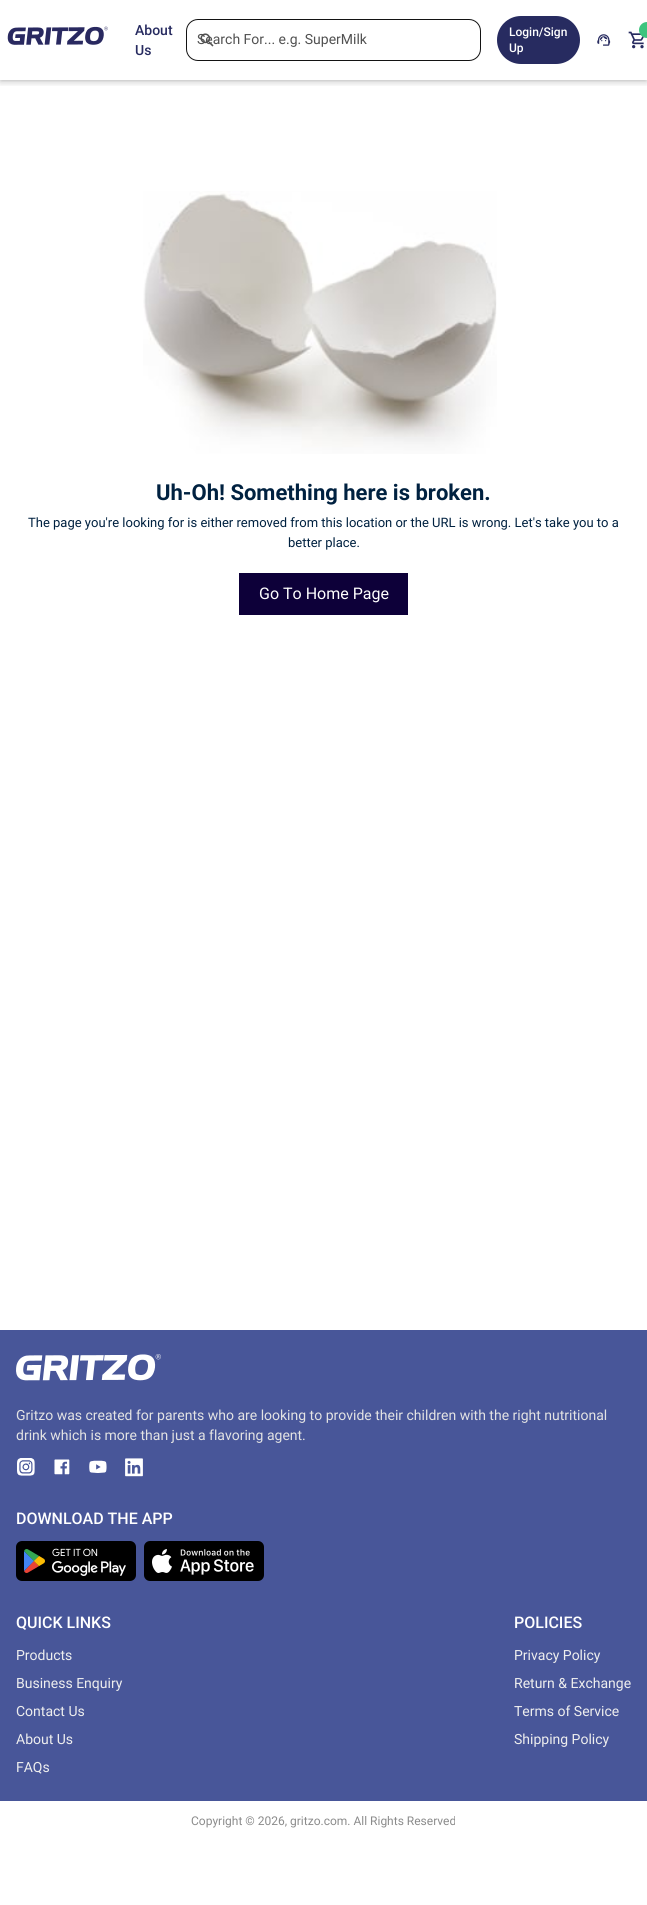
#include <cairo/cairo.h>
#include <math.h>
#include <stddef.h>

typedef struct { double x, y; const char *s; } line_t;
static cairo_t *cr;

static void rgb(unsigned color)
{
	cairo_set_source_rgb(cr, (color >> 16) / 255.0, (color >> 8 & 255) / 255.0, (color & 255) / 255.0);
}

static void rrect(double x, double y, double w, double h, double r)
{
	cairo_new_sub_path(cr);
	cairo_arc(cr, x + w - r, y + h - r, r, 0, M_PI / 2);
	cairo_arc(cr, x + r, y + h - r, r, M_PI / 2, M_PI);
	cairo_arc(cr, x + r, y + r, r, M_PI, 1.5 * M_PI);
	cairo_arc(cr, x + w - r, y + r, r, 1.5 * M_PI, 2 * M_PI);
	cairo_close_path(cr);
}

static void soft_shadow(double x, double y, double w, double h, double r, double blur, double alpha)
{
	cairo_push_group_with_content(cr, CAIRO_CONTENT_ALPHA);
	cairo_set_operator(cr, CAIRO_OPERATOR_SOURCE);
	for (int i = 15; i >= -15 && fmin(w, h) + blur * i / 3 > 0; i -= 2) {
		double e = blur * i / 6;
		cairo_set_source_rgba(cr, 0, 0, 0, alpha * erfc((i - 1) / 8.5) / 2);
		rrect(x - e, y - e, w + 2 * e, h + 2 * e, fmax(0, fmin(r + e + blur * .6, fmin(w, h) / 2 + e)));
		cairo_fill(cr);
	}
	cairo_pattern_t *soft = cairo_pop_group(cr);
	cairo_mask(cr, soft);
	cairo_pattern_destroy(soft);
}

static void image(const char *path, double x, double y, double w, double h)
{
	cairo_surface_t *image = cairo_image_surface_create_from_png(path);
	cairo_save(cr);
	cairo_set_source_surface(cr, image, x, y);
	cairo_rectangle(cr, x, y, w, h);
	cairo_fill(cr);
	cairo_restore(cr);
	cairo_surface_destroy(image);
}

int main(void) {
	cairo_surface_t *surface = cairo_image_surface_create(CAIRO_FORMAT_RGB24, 647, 1905);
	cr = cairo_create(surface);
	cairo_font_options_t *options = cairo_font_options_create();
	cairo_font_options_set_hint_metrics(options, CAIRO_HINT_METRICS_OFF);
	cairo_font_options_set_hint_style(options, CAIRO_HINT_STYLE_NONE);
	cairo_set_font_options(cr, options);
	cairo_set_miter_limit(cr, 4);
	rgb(0xffffff);
	cairo_paint(cr);
	cairo_save(cr);
	cairo_rectangle(cr, 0, 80, 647, 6);
	cairo_clip(cr);
	rgb(0x000000);
	soft_shadow(0, 3, 647, 80, 0, 3, 0.16);
	cairo_restore(cr);
	cairo_save(cr);
	cairo_rectangle(cr, 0, 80, 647, 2);
	cairo_clip(cr);
	rgb(0x000000);
	soft_shadow(0, 1, 647, 80, 0, 1, 0.08);
	cairo_restore(cr);
	image("img/1.png", 7, 26, 101, 19);
	rrect(186.5, 19.5, 294, 41, 11.5);
	rgb(0x131313);
	cairo_set_line_width(cr, 1);
	cairo_stroke(cr);
	rgb(0x272b60);
	rrect(497, 16, 83, 48, 24);
	cairo_fill(cr);
	image("img/3.png", 597, 34, 14, 12);
	image("img/4.png", 628, 31, 16, 18);
	rgb(0x3dc47e);
	cairo_arc(cr, 647, 30, 8, 0, 2 * M_PI);
	cairo_fill(cr);
	image("img/5.png", 143, 191, 354, 263);
	rgb(0x0d0039);
	cairo_rectangle(cr, 239, 573, 169, 42);
	cairo_fill(cr);
	rgb(0x485699);
	cairo_rectangle(cr, 0, 1330, 647, 471);
	cairo_fill(cr);
	image("img/6.png", 16, 1354, 145, 27);
	image("img/7.png", 17, 1458, 18, 18);
	image("img/8.png", 54, 1459, 16, 16);
	image("img/9.png", 89, 1460, 18, 13);
	image("img/10.png", 125, 1458, 18, 19);
	image("img/11.png", 16, 1541, 120, 40);
	image("img/12.png", 144, 1541, 120, 40);
	cairo_select_font_face(cr, "Roboto Medium", CAIRO_FONT_SLANT_NORMAL, CAIRO_FONT_WEIGHT_NORMAL);
	cairo_set_font_size(cr, 14);
	rgb(0x272b60);
	cairo_move_to(cr, 135, 35);
	cairo_show_text(cr, "About");
	cairo_move_to(cr, 135, 55);
	cairo_show_text(cr, "Us");
	cairo_select_font_face(cr, "Roboto", CAIRO_FONT_SLANT_NORMAL, CAIRO_FONT_WEIGHT_NORMAL);
	rgb(0x515151);
	cairo_move_to(cr, 197, 44);
	cairo_show_text(cr, "Search For... e.g. SuperMilk");
	image("img/2.png", 200, 33, 14, 14);
	cairo_select_font_face(cr, "Roboto Medium", CAIRO_FONT_SLANT_NORMAL, CAIRO_FONT_WEIGHT_NORMAL);
	cairo_set_font_size(cr, 12);
	rgb(0xffffff);
	cairo_move_to(cr, 509, 36);
	cairo_show_text(cr, "Login/Sign");
	cairo_move_to(cr, 509, 52);
	cairo_show_text(cr, "Up");
	cairo_select_font_face(cr, "Roboto", CAIRO_FONT_SLANT_NORMAL, CAIRO_FONT_WEIGHT_BOLD);
	cairo_set_font_size(cr, 22);
	rgb(0x002140);
	cairo_move_to(cr, 156, 500);
	cairo_show_text(cr, "Uh-Oh! Something here is broken.");
	cairo_select_font_face(cr, "Roboto", CAIRO_FONT_SLANT_NORMAL, CAIRO_FONT_WEIGHT_NORMAL);
	cairo_set_font_size(cr, 13);
	cairo_move_to(cr, 28, 527);
	cairo_show_text(cr, "The page you're looking for is either removed from this location or the URL is wrong. Let's take you to a");
	cairo_move_to(cr, 288, 547);
	cairo_show_text(cr, "better place.");
	cairo_set_font_size(cr, 16);
	rgb(0xffffff);
	cairo_move_to(cr, 259, 599);
	cairo_show_text(cr, "Go To Home Page");
	cairo_set_font_size(cr, 14);
	rgb(0xe3e3e3);
	cairo_move_to(cr, 16, 1420);
	cairo_show_text(cr, "Gritzo was created for parents who are looking to provide their children with the right nutritional");
	cairo_move_to(cr, 16, 1440);
	cairo_show_text(cr, "drink which is more than just a flavoring agent.");
	cairo_select_font_face(cr, "Roboto Medium", CAIRO_FONT_SLANT_NORMAL, CAIRO_FONT_WEIGHT_NORMAL);
	cairo_set_font_size(cr, 16);
	rgb(0xffffff);
	cairo_move_to(cr, 16, 1524);
	cairo_show_text(cr, "DOWNLOAD THE APP");
	cairo_move_to(cr, 16, 1628);
	cairo_show_text(cr, "QUICK LINKS");
	cairo_select_font_face(cr, "Roboto", CAIRO_FONT_SLANT_NORMAL, CAIRO_FONT_WEIGHT_NORMAL);
	cairo_set_font_size(cr, 14);
	rgb(0xeeeeee);
	{
		static const line_t items[] = {
			{16, 1660, "Products"},
			{16, 1688, "Business Enquiry"},
			{16, 1716, "Contact Us"},
			{16, 1744, "About Us"},
			{16, 1772, "FAQs"},
		};
		for (size_t i = 0; i < sizeof items / sizeof *items; i++) {
			cairo_move_to(cr, items[i].x, items[i].y);
			cairo_show_text(cr, items[i].s);
		}
	}
	cairo_select_font_face(cr, "Roboto Medium", CAIRO_FONT_SLANT_NORMAL, CAIRO_FONT_WEIGHT_NORMAL);
	cairo_set_font_size(cr, 16);
	rgb(0xffffff);
	cairo_move_to(cr, 514, 1628);
	cairo_show_text(cr, "POLICIES");
	cairo_select_font_face(cr, "Roboto", CAIRO_FONT_SLANT_NORMAL, CAIRO_FONT_WEIGHT_NORMAL);
	cairo_set_font_size(cr, 14);
	rgb(0xeeeeee);
	{
		static const line_t items[] = {
			{514, 1660, "Privacy Policy"},
			{514, 1688, "Return & Exchange"},
			{514, 1716, "Terms of Service"},
			{514, 1744, "Shipping Policy"},
		};
		for (size_t i = 0; i < sizeof items / sizeof *items; i++) {
			cairo_move_to(cr, items[i].x, items[i].y);
			cairo_show_text(cr, items[i].s);
		}
	}
	cairo_set_font_size(cr, 12);
	rgb(0x8b8b8b);
	cairo_move_to(cr, 191, 1825);
	cairo_show_text(cr, "Copyright © 2026, gritzo.com. All Rights Reserved");
	cairo_surface_write_to_png(surface, "page.png");
	cairo_font_options_destroy(options);
	cairo_destroy(cr);
	cairo_surface_destroy(surface);
	return 0;
}
